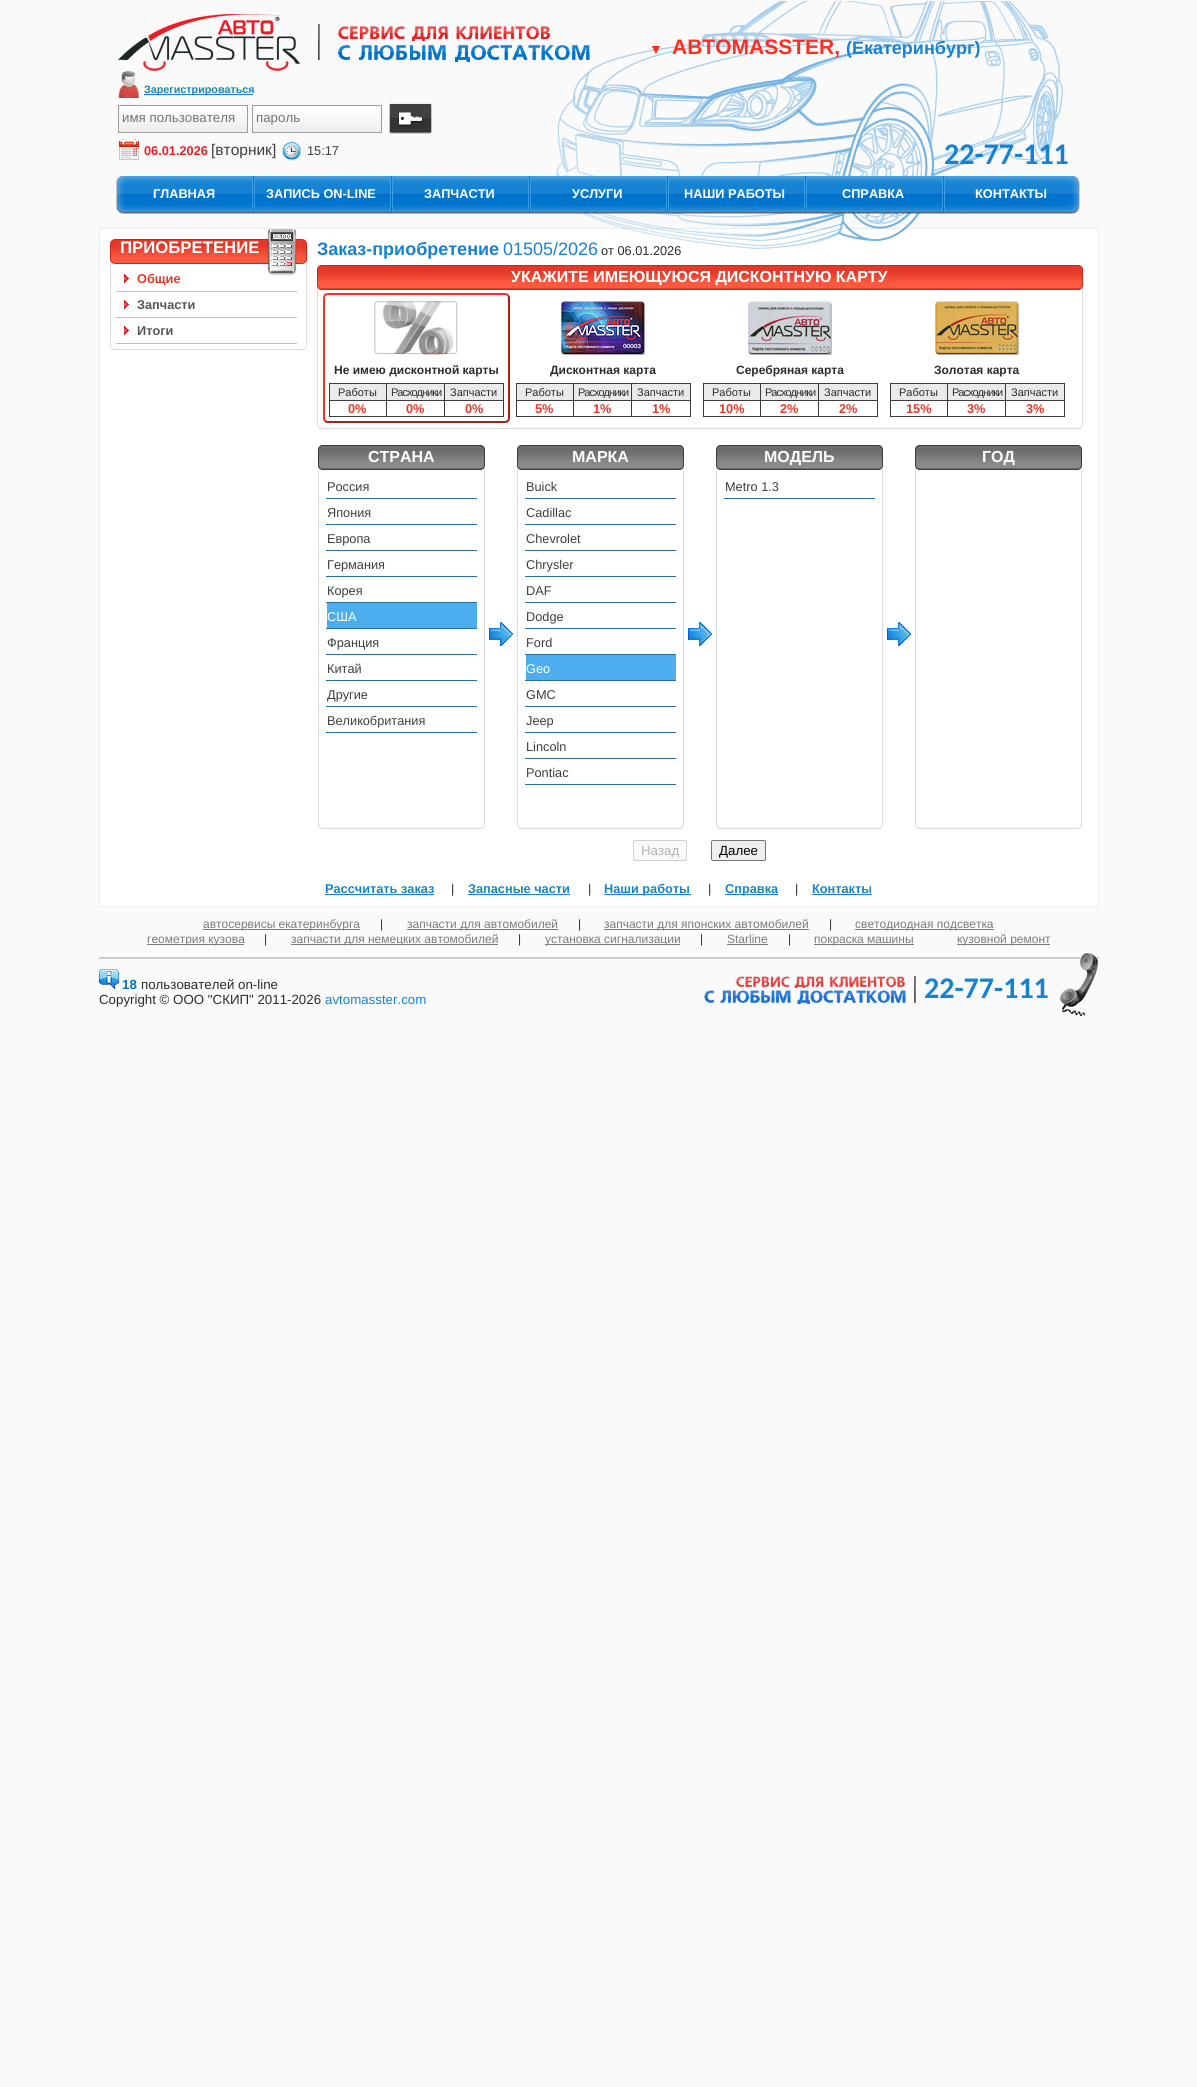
#include <cairo/cairo.h>
#include <math.h>
#include <stddef.h>

typedef struct { double x, y; const char *s; } line_t;
typedef struct { double x, y, w, h; unsigned color; } box_t;
static cairo_t *cr;

static void rgb(unsigned color)
{
	cairo_set_source_rgb(cr, (color >> 16) / 255.0, (color >> 8 & 255) / 255.0, (color & 255) / 255.0);
}

static void tracked(double x, double y, const char *s, double letter, double word)
{
	cairo_move_to(cr, x, y);
	while (*s) {
		char ch[5] = {0};
		int n = 0;
		do ch[n++] = *s++; while ((*s & 0xC0) == 0x80);
		cairo_show_text(cr, ch);
		cairo_rel_move_to(cr, letter + word * (*ch == ' '), 0);
	}
}

static void rrect(double x, double y, double w, double h, double r)
{
	cairo_new_sub_path(cr);
	cairo_arc(cr, x + w - r, y + h - r, r, 0, M_PI / 2);
	cairo_arc(cr, x + r, y + h - r, r, M_PI / 2, M_PI);
	cairo_arc(cr, x + r, y + r, r, M_PI, 1.5 * M_PI);
	cairo_arc(cr, x + w - r, y + r, r, 1.5 * M_PI, 2 * M_PI);
	cairo_close_path(cr);
}

static void image(const char *path, double x, double y, double w, double h)
{
	cairo_surface_t *image = cairo_image_surface_create_from_png(path);
	cairo_save(cr);
	cairo_set_source_surface(cr, image, x, y);
	cairo_rectangle(cr, x, y, w, h);
	cairo_fill(cr);
	cairo_restore(cr);
	cairo_surface_destroy(image);
}

int main(void) {
	cairo_surface_t *surface = cairo_image_surface_create(CAIRO_FORMAT_RGB24, 1197, 2087);
	cr = cairo_create(surface);
	cairo_font_options_t *options = cairo_font_options_create();
	cairo_font_options_set_hint_metrics(options, CAIRO_HINT_METRICS_OFF);
	cairo_font_options_set_hint_style(options, CAIRO_HINT_STYLE_NONE);
	cairo_set_font_options(cr, options);
	cairo_set_miter_limit(cr, 4);
	rgb(0xfafafa);
	cairo_paint(cr);
	rgb(0xffffff);
	cairo_rectangle(cr, 100, 229, 998, 677);
	cairo_fill(cr);
	rgb(0xededed);
	cairo_rectangle(cr, 99, 228, 1000, 1);
	cairo_fill(cr);
	image("img/1.png", 118, 1, 945, 248);
	rgb(0x1682d3);
	cairo_rectangle(cr, 144, 94, 109, 1);
	cairo_fill(cr);
	image("img/2.png", 389, 103, 43, 31);
	image("img/3.png", 119, 139, 20, 21);
	image("img/4.png", 282, 141, 20, 20);
	image("img/5.png", 116, 176, 137, 38);
	image("img/6.png", 253, 176, 138, 38);
	image("img/6.png", 391, 176, 138, 38);
	image("img/7.png", 529, 176, 138, 38);
	image("img/8.png", 667, 176, 138, 38);
	image("img/9.png", 805, 176, 138, 38);
	image("img/10.png", 943, 176, 137, 38);
	rgb(0xededed);
	cairo_rectangle(cr, 1098, 228, 1, 679);
	cairo_fill(cr);
	cairo_rectangle(cr, 99, 228, 1, 643);
	cairo_fill(cr);
	rrect(110.5, 255.5, 196, 94, 4.5);
	rgb(0xdbdbdb);
	cairo_set_line_width(cr, 1);
	cairo_stroke(cr);
	image("img/11.png", 110, 229, 197, 47);
	image("img/12.png", 124, 274, 5, 9);
	rgb(0xc0c0c0);
	cairo_rectangle(cr, 116, 291, 181, 1);
	cairo_fill(cr);
	image("img/12.png", 124, 300, 5, 9);
	cairo_rectangle(cr, 116, 317, 181, 1);
	cairo_fill(cr);
	image("img/12.png", 124, 326, 5, 9);
	cairo_rectangle(cr, 116, 343, 181, 1);
	cairo_fill(cr);
	image("img/13.png", 317, 265, 766, 25);
	rrect(317.5, 265.5, 765, 24, 4.5);
	rgb(0xd62317);
	cairo_stroke(cr);
	rgb(0xdbdbdb);
	cairo_set_fill_rule(cr, CAIRO_FILL_RULE_EVEN_ODD);
	cairo_new_path(cr);
	cairo_move_to(cr, 317, 288);
	cairo_line_to(cr, 1083, 288);
	cairo_line_to(cr, 1083, 424);
	cairo_curve_to(cr, 1083, 427, 1081, 429, 1078, 429);
	cairo_line_to(cr, 322, 429);
	cairo_curve_to(cr, 319, 429, 317, 427, 317, 424);
	cairo_close_path(cr);
	cairo_move_to(cr, 318, 288);
	cairo_line_to(cr, 1082, 288);
	cairo_line_to(cr, 1082, 424);
	cairo_curve_to(cr, 1082, 426, 1080, 428, 1078, 428);
	cairo_line_to(cr, 322, 428);
	cairo_curve_to(cr, 320, 428, 318, 426, 318, 424);
	cairo_close_path(cr);
	cairo_fill(cr);
	cairo_new_path(cr);
	cairo_move_to(cr, 508, 295);
	cairo_curve_to(cr, 508.5, 296, 509, 297, 509, 298);
	cairo_line_to(cr, 509, 418);
	cairo_curve_to(cr, 509, 419, 508.5, 420, 508, 421);
	cairo_curve_to(cr, 507, 421.5, 506, 422, 505, 422);
	cairo_line_to(cr, 328, 422);
	cairo_curve_to(cr, 327, 422, 326, 421.5, 325, 421);
	rgb(0xaa1f16);
	cairo_set_line_width(cr, 2);
	cairo_stroke(cr);
	cairo_new_path(cr);
	cairo_move_to(cr, 325, 421);
	cairo_curve_to(cr, 324.5, 420, 324, 419, 324, 418);
	cairo_line_to(cr, 324, 298);
	cairo_curve_to(cr, 324, 297, 324.5, 296, 325, 295);
	cairo_curve_to(cr, 326, 294.5, 327, 294, 328, 294);
	cairo_line_to(cr, 505, 294);
	cairo_curve_to(cr, 506, 294, 507, 294.5, 508, 295);
	rgb(0xff2e21);
	cairo_stroke(cr);
	image("img/14.png", 374, 301, 84, 54);
	{
		static const box_t items[] = {
			{330, 384, 56, 16, 0xeaeaea},
			{444, 383, 60, 1, 0x3c3c3c},
			{444, 400, 60, 1, 0x3c3c3c},
			{503, 400, 1, 17, 0x3c3c3c},
			{444, 416, 60, 1, 0x3c3c3c},
			{444, 400, 1, 17, 0x3c3c3c},
			{386, 400, 59, 1, 0x3c3c3c},
			{444, 383, 1, 18, 0x3c3c3c},
			{386, 383, 59, 1, 0x3c3c3c},
			{386, 416, 59, 1, 0x3c3c3c},
			{386, 400, 1, 17, 0x3c3c3c},
			{329, 400, 58, 1, 0x3c3c3c},
			{386, 383, 1, 18, 0x3c3c3c},
			{329, 383, 58, 1, 0x3c3c3c},
			{329, 416, 58, 1, 0x3c3c3c},
			{329, 400, 1, 17, 0x3c3c3c},
			{329, 383, 1, 18, 0x3c3c3c},
			{387, 384, 57, 16, 0xeaeaea},
			{445, 384, 58, 16, 0xeaeaea},
			{503, 383, 1, 18, 0x3c3c3c},
		};
		for (size_t i = 0; i < sizeof items / sizeof *items; i++) {
			rgb(items[i].color);
			cairo_rectangle(cr, items[i].x, items[i].y, items[i].w, items[i].h);
			cairo_fill(cr);
		}
	}
	image("img/15.png", 561, 301, 84, 54);
	{
		static const box_t items[] = {
			{517, 384, 56, 16, 0xeaeaea},
			{631, 383, 60, 1, 0x3c3c3c},
			{631, 400, 60, 1, 0x3c3c3c},
			{690, 400, 1, 17, 0x3c3c3c},
			{631, 416, 60, 1, 0x3c3c3c},
			{631, 400, 1, 17, 0x3c3c3c},
			{573, 400, 59, 1, 0x3c3c3c},
			{631, 383, 1, 18, 0x3c3c3c},
			{573, 383, 59, 1, 0x3c3c3c},
			{573, 416, 59, 1, 0x3c3c3c},
			{573, 400, 1, 17, 0x3c3c3c},
			{516, 400, 58, 1, 0x3c3c3c},
			{573, 383, 1, 18, 0x3c3c3c},
			{516, 383, 58, 1, 0x3c3c3c},
			{516, 416, 58, 1, 0x3c3c3c},
			{516, 400, 1, 17, 0x3c3c3c},
			{516, 383, 1, 18, 0x3c3c3c},
			{574, 384, 57, 16, 0xeaeaea},
			{632, 384, 58, 16, 0xeaeaea},
			{690, 383, 1, 18, 0x3c3c3c},
		};
		for (size_t i = 0; i < sizeof items / sizeof *items; i++) {
			rgb(items[i].color);
			cairo_rectangle(cr, items[i].x, items[i].y, items[i].w, items[i].h);
			cairo_fill(cr);
		}
	}
	image("img/16.png", 748, 301, 84, 54);
	{
		static const box_t items[] = {
			{704, 384, 56, 16, 0xeaeaea},
			{818, 383, 60, 1, 0x3c3c3c},
			{818, 400, 60, 1, 0x3c3c3c},
			{877, 400, 1, 17, 0x3c3c3c},
			{818, 416, 60, 1, 0x3c3c3c},
			{818, 400, 1, 17, 0x3c3c3c},
			{760, 400, 59, 1, 0x3c3c3c},
			{818, 383, 1, 18, 0x3c3c3c},
			{760, 383, 59, 1, 0x3c3c3c},
			{760, 416, 59, 1, 0x3c3c3c},
			{760, 400, 1, 17, 0x3c3c3c},
			{703, 400, 58, 1, 0x3c3c3c},
			{760, 383, 1, 18, 0x3c3c3c},
			{703, 383, 58, 1, 0x3c3c3c},
			{703, 416, 58, 1, 0x3c3c3c},
			{703, 400, 1, 17, 0x3c3c3c},
			{703, 383, 1, 18, 0x3c3c3c},
			{761, 384, 57, 16, 0xeaeaea},
			{819, 384, 58, 16, 0xeaeaea},
			{877, 383, 1, 18, 0x3c3c3c},
		};
		for (size_t i = 0; i < sizeof items / sizeof *items; i++) {
			rgb(items[i].color);
			cairo_rectangle(cr, items[i].x, items[i].y, items[i].w, items[i].h);
			cairo_fill(cr);
		}
	}
	image("img/17.png", 935, 301, 84, 54);
	{
		static const box_t items[] = {
			{891, 384, 56, 16, 0xeaeaea},
			{1005, 383, 60, 1, 0x3c3c3c},
			{1005, 400, 60, 1, 0x3c3c3c},
			{1064, 400, 1, 17, 0x3c3c3c},
			{1005, 416, 60, 1, 0x3c3c3c},
			{1005, 400, 1, 17, 0x3c3c3c},
			{947, 400, 59, 1, 0x3c3c3c},
			{1005, 383, 1, 18, 0x3c3c3c},
			{947, 383, 59, 1, 0x3c3c3c},
			{947, 416, 59, 1, 0x3c3c3c},
			{947, 400, 1, 17, 0x3c3c3c},
			{890, 400, 58, 1, 0x3c3c3c},
			{947, 383, 1, 18, 0x3c3c3c},
			{890, 383, 58, 1, 0x3c3c3c},
			{890, 416, 58, 1, 0x3c3c3c},
			{890, 400, 1, 17, 0x3c3c3c},
			{890, 383, 1, 18, 0x3c3c3c},
			{948, 384, 57, 16, 0xeaeaea},
			{1006, 384, 58, 16, 0xeaeaea},
			{1064, 383, 1, 18, 0x3c3c3c},
		};
		for (size_t i = 0; i < sizeof items / sizeof *items; i++) {
			rgb(items[i].color);
			cairo_rectangle(cr, items[i].x, items[i].y, items[i].w, items[i].h);
			cairo_fill(cr);
		}
	}
	image("img/18.png", 318, 445, 167, 25);
	rrect(318.5, 445.5, 166, 24, 4.5);
	cairo_set_line_width(cr, 1);
	cairo_stroke(cr);
	rgb(0xdbdbdb);
	cairo_new_path(cr);
	cairo_move_to(cr, 318, 468);
	cairo_line_to(cr, 485, 468);
	cairo_line_to(cr, 485, 824);
	cairo_curve_to(cr, 485, 827, 483, 829, 480, 829);
	cairo_line_to(cr, 323, 829);
	cairo_curve_to(cr, 320, 829, 318, 827, 318, 824);
	cairo_close_path(cr);
	cairo_move_to(cr, 319, 468);
	cairo_line_to(cr, 484, 468);
	cairo_line_to(cr, 484, 824);
	cairo_curve_to(cr, 484, 826, 482, 828, 480, 828);
	cairo_line_to(cr, 323, 828);
	cairo_curve_to(cr, 321, 828, 319, 826, 319, 824);
	cairo_close_path(cr);
	cairo_fill(cr);
	{
		static const box_t items[] = {
			{326, 498, 151, 1, 0x2c6c98},
			{326, 524, 151, 1, 0x2c6c98},
			{326, 550, 151, 1, 0x2c6c98},
			{326, 576, 151, 1, 0x2c6c98},
			{326, 602, 151, 1, 0x2c6c98},
			{327, 603, 150, 25, 0x4daeef},
			{326, 628, 151, 1, 0x2c6c98},
			{326, 654, 151, 1, 0x2c6c98},
			{326, 680, 151, 1, 0x2c6c98},
			{326, 706, 151, 1, 0x2c6c98},
			{326, 732, 151, 1, 0x2c6c98},
		};
		for (size_t i = 0; i < sizeof items / sizeof *items; i++) {
			rgb(items[i].color);
			cairo_rectangle(cr, items[i].x, items[i].y, items[i].w, items[i].h);
			cairo_fill(cr);
		}
	}
	image("img/19.png", 489, 622, 24, 24);
	image("img/18.png", 517, 445, 167, 25);
	rrect(517.5, 445.5, 166, 24, 4.5);
	rgb(0x3c3c3c);
	cairo_stroke(cr);
	rgb(0xdbdbdb);
	cairo_new_path(cr);
	cairo_move_to(cr, 517, 468);
	cairo_line_to(cr, 684, 468);
	cairo_line_to(cr, 684, 824);
	cairo_curve_to(cr, 684, 827, 682, 829, 679, 829);
	cairo_line_to(cr, 522, 829);
	cairo_curve_to(cr, 519, 829, 517, 827, 517, 824);
	cairo_close_path(cr);
	cairo_move_to(cr, 518, 468);
	cairo_line_to(cr, 683, 468);
	cairo_line_to(cr, 683, 824);
	cairo_curve_to(cr, 683, 826, 681, 828, 679, 828);
	cairo_line_to(cr, 522, 828);
	cairo_curve_to(cr, 520, 828, 518, 826, 518, 824);
	cairo_close_path(cr);
	cairo_fill(cr);
	{
		static const box_t items[] = {
			{525, 498, 151, 1, 0x2c6c98},
			{525, 524, 151, 1, 0x2c6c98},
			{525, 550, 151, 1, 0x2c6c98},
			{525, 576, 151, 1, 0x2c6c98},
			{525, 602, 151, 1, 0x2c6c98},
			{525, 628, 151, 1, 0x2c6c98},
			{525, 654, 151, 1, 0x2c6c98},
			{526, 655, 150, 25, 0x4daeef},
			{525, 680, 151, 1, 0x2c6c98},
			{525, 706, 151, 1, 0x2c6c98},
			{525, 732, 151, 1, 0x2c6c98},
			{525, 758, 151, 1, 0x2c6c98},
			{525, 784, 151, 1, 0x2c6c98},
		};
		for (size_t i = 0; i < sizeof items / sizeof *items; i++) {
			rgb(items[i].color);
			cairo_rectangle(cr, items[i].x, items[i].y, items[i].w, items[i].h);
			cairo_fill(cr);
		}
	}
	image("img/19.png", 688, 622, 24, 24);
	image("img/20.png", 716, 445, 167, 25);
	rrect(716.5, 445.5, 166, 24, 4.5);
	rgb(0x3c3c3c);
	cairo_stroke(cr);
	rgb(0xdbdbdb);
	cairo_new_path(cr);
	cairo_move_to(cr, 716, 468);
	cairo_line_to(cr, 883, 468);
	cairo_line_to(cr, 883, 824);
	cairo_curve_to(cr, 883, 827, 881, 829, 878, 829);
	cairo_line_to(cr, 721, 829);
	cairo_curve_to(cr, 718, 829, 716, 827, 716, 824);
	cairo_close_path(cr);
	cairo_move_to(cr, 717, 468);
	cairo_line_to(cr, 882, 468);
	cairo_line_to(cr, 882, 824);
	cairo_curve_to(cr, 882, 826, 880, 828, 878, 828);
	cairo_line_to(cr, 721, 828);
	cairo_curve_to(cr, 719, 828, 717, 826, 717, 824);
	cairo_close_path(cr);
	cairo_fill(cr);
	rgb(0x2c6c98);
	cairo_rectangle(cr, 724, 498, 151, 1);
	cairo_fill(cr);
	image("img/19.png", 887, 622, 24, 24);
	image("img/20.png", 915, 445, 167, 25);
	rrect(915.5, 445.5, 166, 24, 4.5);
	rgb(0x3c3c3c);
	cairo_stroke(cr);
	rgb(0xdbdbdb);
	cairo_new_path(cr);
	cairo_move_to(cr, 915, 468);
	cairo_line_to(cr, 1082, 468);
	cairo_line_to(cr, 1082, 824);
	cairo_curve_to(cr, 1082, 827, 1080, 829, 1077, 829);
	cairo_line_to(cr, 920, 829);
	cairo_curve_to(cr, 917, 829, 915, 827, 915, 824);
	cairo_close_path(cr);
	cairo_move_to(cr, 916, 468);
	cairo_line_to(cr, 1081, 468);
	cairo_line_to(cr, 1081, 824);
	cairo_curve_to(cr, 1081, 826, 1079, 828, 1077, 828);
	cairo_line_to(cr, 920, 828);
	cairo_curve_to(cr, 918, 828, 916, 826, 916, 824);
	cairo_close_path(cr);
	cairo_fill(cr);
	rgb(0xfafafa);
	rrect(633.5, 840.5, 53, 20, 1.5);
	cairo_fill_preserve(cr);
	rgb(0xd2d2d2);
	cairo_stroke(cr);
	rgb(0xefefef);
	rrect(711.5, 840.5, 54, 20, 1.5);
	cairo_fill_preserve(cr);
	rgb(0x767676);
	cairo_stroke(cr);
	{
		static const box_t items[] = {
			{99, 906, 1000, 1, 0xededed},
			{99, 871, 1, 36, 0xededed},
			{325, 894, 109, 1, 0x1682d3},
			{468, 894, 102, 1, 0x1682d3},
			{604, 894, 87, 1, 0x1682d3},
			{725, 894, 53, 1, 0x1682d3},
			{812, 894, 60, 1, 0x1682d3},
			{203, 929, 157, 1, 0x7c7c7c},
			{407, 929, 151, 1, 0x7c7c7c},
			{604, 929, 205, 1, 0x7c7c7c},
			{855, 929, 139, 1, 0x7c7c7c},
			{147, 944, 97, 1, 0x7c7c7c},
			{291, 944, 207, 1, 0x7c7c7c},
			{545, 944, 135, 1, 0x7c7c7c},
			{727, 944, 41, 1, 0x7c7c7c},
			{814, 944, 100, 1, 0x7c7c7c},
			{957, 944, 93, 1, 0x7c7c7c},
			{99, 957, 1000, 2, 0xcccccc},
		};
		for (size_t i = 0; i < sizeof items / sizeof *items; i++) {
			rgb(items[i].color);
			cairo_rectangle(cr, items[i].x, items[i].y, items[i].w, items[i].h);
			cairo_fill(cr);
		}
	}
	image("img/21.png", 99, 969, 20, 20);
	image("img/22.png", 704, 976, 212, 28);
	image("img/23.png", 1060, 953, 38, 63);
	cairo_select_font_face(cr, "Liberation Sans", CAIRO_FONT_SLANT_NORMAL, CAIRO_FONT_WEIGHT_BOLD);
	cairo_set_font_size(cr, 10.75);
	rgb(0x1682d3);
	cairo_move_to(cr, 144, 93);
	cairo_show_text(cr, "Зарегистрироваться");
	cairo_select_font_face(cr, "Liberation Sans", CAIRO_FONT_SLANT_NORMAL, CAIRO_FONT_WEIGHT_NORMAL);
	cairo_set_font_size(cr, 13.3);
	rgb(0x757575);
	cairo_move_to(cr, 122, 122);
	cairo_show_text(cr, "имя пользователя");
	cairo_move_to(cr, 256, 122);
	cairo_show_text(cr, "пароль");
	cairo_select_font_face(cr, "Liberation Sans", CAIRO_FONT_SLANT_NORMAL, CAIRO_FONT_WEIGHT_BOLD);
	cairo_set_font_size(cr, 14);
	rgb(0xff2e21);
	cairo_move_to(cr, 649, 54);
	cairo_show_text(cr, "▼");
	cairo_set_font_size(cr, 21);
	cairo_move_to(cr, 672, 54);
	cairo_show_text(cr, "ABTOMASSTER,");
	cairo_set_font_size(cr, 18);
	rgb(0x1682d3);
	cairo_move_to(cr, 846, 54);
	cairo_show_text(cr, "(Екатеринбург)");
	cairo_select_font_face(cr, "Carlito", CAIRO_FONT_SLANT_NORMAL, CAIRO_FONT_WEIGHT_BOLD);
	cairo_set_font_size(cr, 30);
	cairo_move_to(cr, 944, 164);
	cairo_show_text(cr, "22-77-111");
	cairo_select_font_face(cr, "Liberation Sans", CAIRO_FONT_SLANT_NORMAL, CAIRO_FONT_WEIGHT_BOLD);
	cairo_set_font_size(cr, 12.75);
	rgb(0xed1d24);
	cairo_move_to(cr, 144, 155);
	cairo_show_text(cr, "06.01.2026");
	cairo_select_font_face(cr, "Liberation Sans", CAIRO_FONT_SLANT_NORMAL, CAIRO_FONT_WEIGHT_NORMAL);
	cairo_set_font_size(cr, 15.5);
	rgb(0x3e3e3e);
	cairo_move_to(cr, 211, 155);
	cairo_show_text(cr, "[вторник]");
	cairo_set_font_size(cr, 12.75);
	cairo_move_to(cr, 307, 155);
	cairo_show_text(cr, "15:17");
	cairo_select_font_face(cr, "Liberation Sans", CAIRO_FONT_SLANT_NORMAL, CAIRO_FONT_WEIGHT_BOLD);
	rgb(0xffffff);
	{
		static const line_t items[] = {
			{153, 198, "ГЛАВНАЯ"},
			{266, 198, "ЗАПИСЬ ON-LINE"},
			{424, 198, "ЗАПЧАСТИ"},
			{572, 198, "УСЛУГИ"},
			{684, 198, "НАШИ РАБОТЫ"},
			{842, 198, "СПРАВКА"},
			{975, 198, "КОНТАКТЫ"},
		};
		for (size_t i = 0; i < sizeof items / sizeof *items; i++) {
			cairo_move_to(cr, items[i].x, items[i].y);
			cairo_show_text(cr, items[i].s);
		}
	}
	cairo_set_font_size(cr, 16.75);
	cairo_move_to(cr, 120, 253);
	cairo_show_text(cr, "ПРИОБРЕТЕНИЕ");
	cairo_set_font_size(cr, 12.75);
	rgb(0xe2392a);
	cairo_move_to(cr, 137, 283);
	cairo_show_text(cr, "Общие");
	rgb(0x555555);
	cairo_move_to(cr, 137, 309);
	cairo_show_text(cr, "Запчасти");
	cairo_move_to(cr, 137, 335);
	cairo_show_text(cr, "Итоги");
	cairo_set_font_size(cr, 18);
	rgb(0x1682d3);
	cairo_move_to(cr, 317, 255);
	cairo_show_text(cr, "Заказ-приобретение");
	cairo_select_font_face(cr, "Liberation Sans", CAIRO_FONT_SLANT_NORMAL, CAIRO_FONT_WEIGHT_NORMAL);
	cairo_move_to(cr, 503, 255);
	cairo_show_text(cr, "01505/2026");
	cairo_set_font_size(cr, 12.75);
	rgb(0x2c2c2c);
	cairo_move_to(cr, 601, 255);
	cairo_show_text(cr, "от 06.01.2026");
	cairo_select_font_face(cr, "Liberation Sans", CAIRO_FONT_SLANT_NORMAL, CAIRO_FONT_WEIGHT_BOLD);
	cairo_set_font_size(cr, 16);
	rgb(0xffffff);
	cairo_move_to(cr, 511, 282);
	cairo_show_text(cr, "УКАЖИТЕ ИМЕЮЩУЮСЯ ДИСКОНТНУЮ КАРТУ");
	cairo_set_font_size(cr, 12);
	rgb(0x2c2c2c);
	cairo_move_to(cr, 334, 374);
	cairo_show_text(cr, "Не имею дисконтной карты");
	cairo_select_font_face(cr, "Liberation Sans", CAIRO_FONT_SLANT_NORMAL, CAIRO_FONT_WEIGHT_NORMAL);
	cairo_set_font_size(cr, 11);
	cairo_move_to(cr, 338, 396);
	cairo_show_text(cr, "Работы");
	tracked(391, 396, "Расходники", -1, 0);
	cairo_move_to(cr, 450, 396);
	cairo_show_text(cr, "Запчасти");
	cairo_select_font_face(cr, "Liberation Sans", CAIRO_FONT_SLANT_NORMAL, CAIRO_FONT_WEIGHT_BOLD);
	cairo_set_font_size(cr, 12.75);
	rgb(0xe2392a);
	{
		static const line_t items[] = {
			{348, 413, "0%"},
			{406, 413, "0%"},
			{465, 413, "0%"},
		};
		for (size_t i = 0; i < sizeof items / sizeof *items; i++) {
			cairo_move_to(cr, items[i].x, items[i].y);
			cairo_show_text(cr, items[i].s);
		}
	}
	cairo_set_font_size(cr, 12);
	rgb(0x2c2c2c);
	cairo_move_to(cr, 550, 374);
	cairo_show_text(cr, "Дисконтная карта");
	cairo_select_font_face(cr, "Liberation Sans", CAIRO_FONT_SLANT_NORMAL, CAIRO_FONT_WEIGHT_NORMAL);
	cairo_set_font_size(cr, 11);
	cairo_move_to(cr, 525, 396);
	cairo_show_text(cr, "Работы");
	tracked(578, 396, "Расходники", -1, 0);
	cairo_move_to(cr, 637, 396);
	cairo_show_text(cr, "Запчасти");
	cairo_select_font_face(cr, "Liberation Sans", CAIRO_FONT_SLANT_NORMAL, CAIRO_FONT_WEIGHT_BOLD);
	cairo_set_font_size(cr, 12.75);
	rgb(0xe2392a);
	{
		static const line_t items[] = {
			{535, 413, "5%"},
			{593, 413, "1%"},
			{652, 413, "1%"},
		};
		for (size_t i = 0; i < sizeof items / sizeof *items; i++) {
			cairo_move_to(cr, items[i].x, items[i].y);
			cairo_show_text(cr, items[i].s);
		}
	}
	cairo_set_font_size(cr, 12);
	rgb(0x2c2c2c);
	cairo_move_to(cr, 736, 374);
	cairo_show_text(cr, "Серебряная карта");
	cairo_select_font_face(cr, "Liberation Sans", CAIRO_FONT_SLANT_NORMAL, CAIRO_FONT_WEIGHT_NORMAL);
	cairo_set_font_size(cr, 11);
	cairo_move_to(cr, 712, 396);
	cairo_show_text(cr, "Работы");
	tracked(765, 396, "Расходники", -1, 0);
	cairo_move_to(cr, 824, 396);
	cairo_show_text(cr, "Запчасти");
	cairo_select_font_face(cr, "Liberation Sans", CAIRO_FONT_SLANT_NORMAL, CAIRO_FONT_WEIGHT_BOLD);
	cairo_set_font_size(cr, 12.75);
	rgb(0xe2392a);
	{
		static const line_t items[] = {
			{719, 413, "10%"},
			{780, 413, "2%"},
			{839, 413, "2%"},
		};
		for (size_t i = 0; i < sizeof items / sizeof *items; i++) {
			cairo_move_to(cr, items[i].x, items[i].y);
			cairo_show_text(cr, items[i].s);
		}
	}
	cairo_set_font_size(cr, 12);
	rgb(0x2c2c2c);
	cairo_move_to(cr, 934, 374);
	cairo_show_text(cr, "Золотая карта");
	cairo_select_font_face(cr, "Liberation Sans", CAIRO_FONT_SLANT_NORMAL, CAIRO_FONT_WEIGHT_NORMAL);
	cairo_set_font_size(cr, 11);
	cairo_move_to(cr, 899, 396);
	cairo_show_text(cr, "Работы");
	tracked(952, 396, "Расходники", -1, 0);
	cairo_move_to(cr, 1011, 396);
	cairo_show_text(cr, "Запчасти");
	cairo_select_font_face(cr, "Liberation Sans", CAIRO_FONT_SLANT_NORMAL, CAIRO_FONT_WEIGHT_BOLD);
	cairo_set_font_size(cr, 12.75);
	rgb(0xe2392a);
	{
		static const line_t items[] = {
			{906, 413, "15%"},
			{967, 413, "3%"},
			{1026, 413, "3%"},
		};
		for (size_t i = 0; i < sizeof items / sizeof *items; i++) {
			cairo_move_to(cr, items[i].x, items[i].y);
			cairo_show_text(cr, items[i].s);
		}
	}
	cairo_set_font_size(cr, 16);
	rgb(0xffffff);
	cairo_move_to(cr, 368, 462);
	cairo_show_text(cr, "СТРАНА");
	cairo_select_font_face(cr, "Liberation Sans", CAIRO_FONT_SLANT_NORMAL, CAIRO_FONT_WEIGHT_NORMAL);
	cairo_set_font_size(cr, 12.75);
	rgb(0x3e3e3e);
	{
		static const line_t items[] = {
			{327, 491, "Россия"},
			{327, 517, "Япония"},
			{327, 543, "Европа"},
			{327, 569, "Германия"},
			{327, 595, "Корея"},
		};
		for (size_t i = 0; i < sizeof items / sizeof *items; i++) {
			cairo_move_to(cr, items[i].x, items[i].y);
			cairo_show_text(cr, items[i].s);
		}
	}
	rgb(0xffffff);
	cairo_move_to(cr, 327, 621);
	cairo_show_text(cr, "США");
	rgb(0x3e3e3e);
	{
		static const line_t items[] = {
			{327, 647, "Франция"},
			{327, 673, "Китай"},
			{327, 699, "Другие"},
			{327, 725, "Великобритания"},
		};
		for (size_t i = 0; i < sizeof items / sizeof *items; i++) {
			cairo_move_to(cr, items[i].x, items[i].y);
			cairo_show_text(cr, items[i].s);
		}
	}
	cairo_select_font_face(cr, "Liberation Sans", CAIRO_FONT_SLANT_NORMAL, CAIRO_FONT_WEIGHT_BOLD);
	cairo_set_font_size(cr, 16);
	rgb(0xffffff);
	cairo_move_to(cr, 572, 462);
	cairo_show_text(cr, "МАРКА");
	cairo_select_font_face(cr, "Liberation Sans", CAIRO_FONT_SLANT_NORMAL, CAIRO_FONT_WEIGHT_NORMAL);
	cairo_set_font_size(cr, 12.75);
	rgb(0x3e3e3e);
	{
		static const line_t items[] = {
			{526, 491, "Buick"},
			{526, 517, "Cadillac"},
			{526, 543, "Chevrolet"},
			{526, 569, "Chrysler"},
			{526, 595, "DAF"},
			{526, 621, "Dodge"},
			{526, 647, "Ford"},
		};
		for (size_t i = 0; i < sizeof items / sizeof *items; i++) {
			cairo_move_to(cr, items[i].x, items[i].y);
			cairo_show_text(cr, items[i].s);
		}
	}
	rgb(0xffffff);
	cairo_move_to(cr, 526, 673);
	cairo_show_text(cr, "Geo");
	rgb(0x3e3e3e);
	{
		static const line_t items[] = {
			{526, 699, "GMC"},
			{526, 725, "Jeep"},
			{526, 751, "Lincoln"},
			{526, 777, "Pontiac"},
		};
		for (size_t i = 0; i < sizeof items / sizeof *items; i++) {
			cairo_move_to(cr, items[i].x, items[i].y);
			cairo_show_text(cr, items[i].s);
		}
	}
	cairo_select_font_face(cr, "Liberation Sans", CAIRO_FONT_SLANT_NORMAL, CAIRO_FONT_WEIGHT_BOLD);
	cairo_set_font_size(cr, 16);
	rgb(0xffffff);
	cairo_move_to(cr, 764, 462);
	cairo_show_text(cr, "МОДЕЛЬ");
	cairo_select_font_face(cr, "Liberation Sans", CAIRO_FONT_SLANT_NORMAL, CAIRO_FONT_WEIGHT_NORMAL);
	cairo_set_font_size(cr, 12.75);
	rgb(0x3e3e3e);
	cairo_move_to(cr, 725, 491);
	cairo_show_text(cr, "Metro 1.3");
	cairo_select_font_face(cr, "Liberation Sans", CAIRO_FONT_SLANT_NORMAL, CAIRO_FONT_WEIGHT_BOLD);
	cairo_set_font_size(cr, 16);
	rgb(0xffffff);
	cairo_move_to(cr, 982, 462);
	cairo_show_text(cr, "ГОД");
	cairo_select_font_face(cr, "Liberation Sans", CAIRO_FONT_SLANT_NORMAL, CAIRO_FONT_WEIGHT_NORMAL);
	cairo_set_font_size(cr, 13.3);
	rgb(0xb4b4b4);
	cairo_move_to(cr, 641, 855);
	cairo_show_text(cr, "Назад");
	rgb(0x000000);
	cairo_move_to(cr, 719, 855);
	cairo_show_text(cr, "Далее");
	cairo_select_font_face(cr, "Liberation Sans", CAIRO_FONT_SLANT_NORMAL, CAIRO_FONT_WEIGHT_BOLD);
	cairo_set_font_size(cr, 12.75);
	rgb(0x1682d3);
	cairo_move_to(cr, 325, 893);
	cairo_show_text(cr, "Рассчитать заказ");
	cairo_select_font_face(cr, "Liberation Sans", CAIRO_FONT_SLANT_NORMAL, CAIRO_FONT_WEIGHT_NORMAL);
	rgb(0x2c2c2c);
	cairo_move_to(cr, 451, 893);
	cairo_show_text(cr, "|");
	cairo_select_font_face(cr, "Liberation Sans", CAIRO_FONT_SLANT_NORMAL, CAIRO_FONT_WEIGHT_BOLD);
	rgb(0x1682d3);
	cairo_move_to(cr, 468, 893);
	cairo_show_text(cr, "Запасные части");
	cairo_select_font_face(cr, "Liberation Sans", CAIRO_FONT_SLANT_NORMAL, CAIRO_FONT_WEIGHT_NORMAL);
	rgb(0x2c2c2c);
	cairo_move_to(cr, 588, 893);
	cairo_show_text(cr, "|");
	cairo_select_font_face(cr, "Liberation Sans", CAIRO_FONT_SLANT_NORMAL, CAIRO_FONT_WEIGHT_BOLD);
	rgb(0x1682d3);
	cairo_move_to(cr, 604, 893);
	cairo_show_text(cr, "Наши работы");
	cairo_select_font_face(cr, "Liberation Sans", CAIRO_FONT_SLANT_NORMAL, CAIRO_FONT_WEIGHT_NORMAL);
	rgb(0x2c2c2c);
	cairo_move_to(cr, 708, 893);
	cairo_show_text(cr, "|");
	cairo_select_font_face(cr, "Liberation Sans", CAIRO_FONT_SLANT_NORMAL, CAIRO_FONT_WEIGHT_BOLD);
	rgb(0x1682d3);
	cairo_move_to(cr, 725, 893);
	cairo_show_text(cr, "Справка");
	cairo_select_font_face(cr, "Liberation Sans", CAIRO_FONT_SLANT_NORMAL, CAIRO_FONT_WEIGHT_NORMAL);
	rgb(0x2c2c2c);
	cairo_move_to(cr, 795, 893);
	cairo_show_text(cr, "|");
	cairo_select_font_face(cr, "Liberation Sans", CAIRO_FONT_SLANT_NORMAL, CAIRO_FONT_WEIGHT_BOLD);
	rgb(0x1682d3);
	cairo_move_to(cr, 812, 893);
	cairo_show_text(cr, "Контакты");
	cairo_select_font_face(cr, "Liberation Sans", CAIRO_FONT_SLANT_NORMAL, CAIRO_FONT_WEIGHT_NORMAL);
	cairo_set_font_size(cr, 12);
	rgb(0x7c7c7c);
	cairo_move_to(cr, 203, 928);
	cairo_show_text(cr, "автосервисы екатеринбурга");
	rgb(0x2c2c2c);
	cairo_move_to(cr, 380, 928);
	cairo_show_text(cr, "|");
	rgb(0x7c7c7c);
	cairo_move_to(cr, 407, 928);
	cairo_show_text(cr, "запчасти для автомобилей");
	rgb(0x2c2c2c);
	cairo_move_to(cr, 578, 928);
	cairo_show_text(cr, "|");
	rgb(0x7c7c7c);
	cairo_move_to(cr, 604, 928);
	cairo_show_text(cr, "запчасти для японских автомобилей");
	rgb(0x2c2c2c);
	cairo_move_to(cr, 829, 928);
	cairo_show_text(cr, "|");
	rgb(0x7c7c7c);
	cairo_move_to(cr, 855, 928);
	cairo_show_text(cr, "светодиодная подсветка");
	cairo_move_to(cr, 147, 943);
	cairo_show_text(cr, "геометрия кузова");
	rgb(0x2c2c2c);
	cairo_move_to(cr, 264, 943);
	cairo_show_text(cr, "|");
	rgb(0x7c7c7c);
	cairo_move_to(cr, 291, 943);
	cairo_show_text(cr, "запчасти для немецких автомобилей");
	rgb(0x2c2c2c);
	cairo_move_to(cr, 518, 943);
	cairo_show_text(cr, "|");
	rgb(0x7c7c7c);
	cairo_move_to(cr, 545, 943);
	cairo_show_text(cr, "установка сигнализации");
	rgb(0x2c2c2c);
	cairo_move_to(cr, 700, 943);
	cairo_show_text(cr, "|");
	rgb(0x7c7c7c);
	cairo_move_to(cr, 727, 943);
	cairo_show_text(cr, "Starline");
	rgb(0x2c2c2c);
	cairo_move_to(cr, 788, 943);
	cairo_show_text(cr, "|");
	rgb(0x7c7c7c);
	cairo_move_to(cr, 814, 943);
	cairo_show_text(cr, "покраска машины");
	cairo_move_to(cr, 957, 943);
	cairo_show_text(cr, "кузовной ремонт");
	cairo_select_font_face(cr, "Liberation Sans", CAIRO_FONT_SLANT_NORMAL, CAIRO_FONT_WEIGHT_BOLD);
	cairo_set_font_size(cr, 13.3);
	rgb(0x0071c4);
	cairo_move_to(cr, 122, 989);
	cairo_show_text(cr, "18");
	cairo_select_font_face(cr, "Liberation Sans", CAIRO_FONT_SLANT_NORMAL, CAIRO_FONT_WEIGHT_NORMAL);
	rgb(0x2c2c2c);
	cairo_move_to(cr, 141, 989);
	cairo_show_text(cr, "пользователей on-line");
	cairo_move_to(cr, 99, 1004);
	cairo_show_text(cr, "Copyright © ООО \"СКИП\" 2011-2026");
	rgb(0x1682d3);
	cairo_move_to(cr, 325, 1004);
	cairo_show_text(cr, "avtomasster.com");
	cairo_select_font_face(cr, "Carlito", CAIRO_FONT_SLANT_NORMAL, CAIRO_FONT_WEIGHT_BOLD);
	cairo_set_font_size(cr, 30);
	cairo_move_to(cr, 924, 998);
	cairo_show_text(cr, "22-77-111");
	cairo_surface_write_to_png(surface, "page.png");
	cairo_font_options_destroy(options);
	cairo_destroy(cr);
	cairo_surface_destroy(surface);
	return 0;
}
